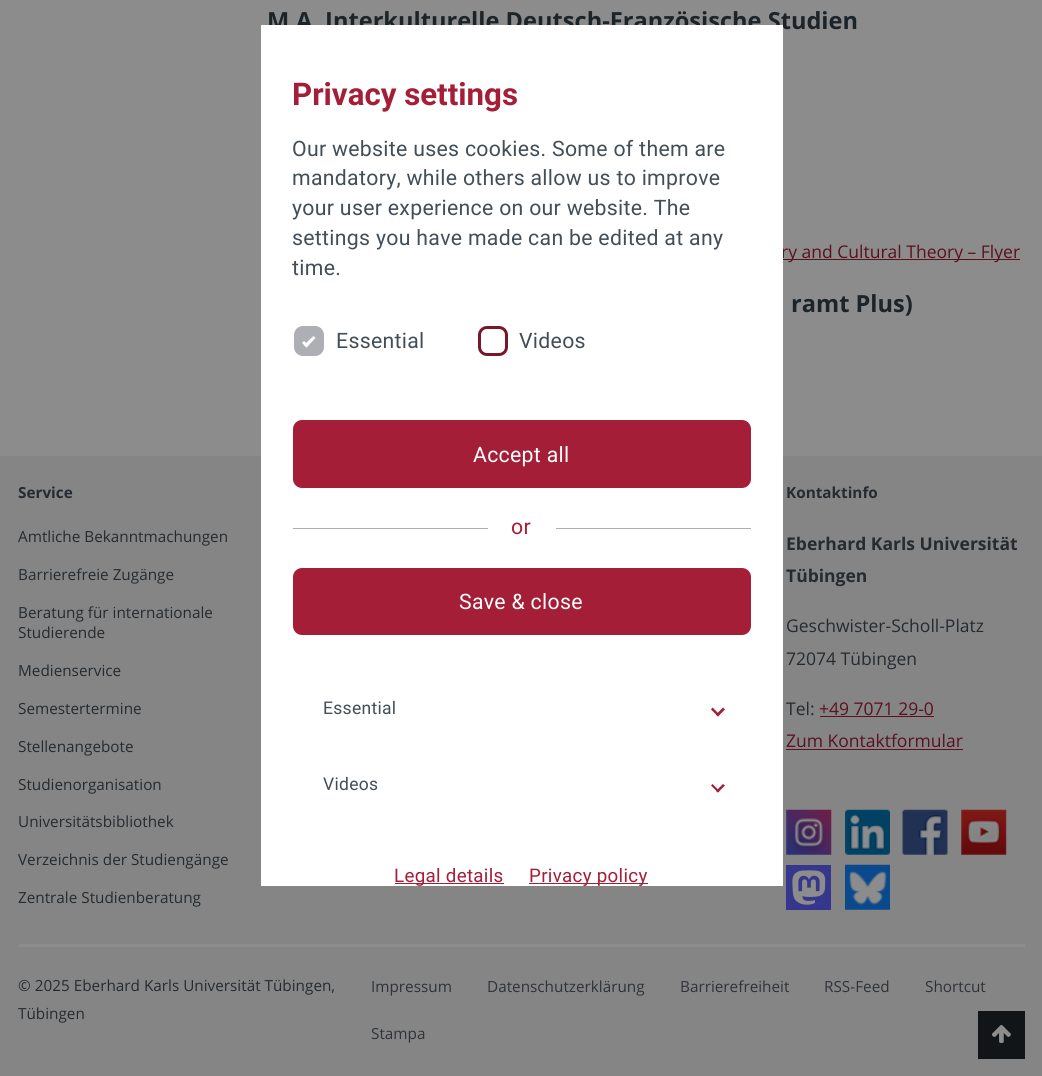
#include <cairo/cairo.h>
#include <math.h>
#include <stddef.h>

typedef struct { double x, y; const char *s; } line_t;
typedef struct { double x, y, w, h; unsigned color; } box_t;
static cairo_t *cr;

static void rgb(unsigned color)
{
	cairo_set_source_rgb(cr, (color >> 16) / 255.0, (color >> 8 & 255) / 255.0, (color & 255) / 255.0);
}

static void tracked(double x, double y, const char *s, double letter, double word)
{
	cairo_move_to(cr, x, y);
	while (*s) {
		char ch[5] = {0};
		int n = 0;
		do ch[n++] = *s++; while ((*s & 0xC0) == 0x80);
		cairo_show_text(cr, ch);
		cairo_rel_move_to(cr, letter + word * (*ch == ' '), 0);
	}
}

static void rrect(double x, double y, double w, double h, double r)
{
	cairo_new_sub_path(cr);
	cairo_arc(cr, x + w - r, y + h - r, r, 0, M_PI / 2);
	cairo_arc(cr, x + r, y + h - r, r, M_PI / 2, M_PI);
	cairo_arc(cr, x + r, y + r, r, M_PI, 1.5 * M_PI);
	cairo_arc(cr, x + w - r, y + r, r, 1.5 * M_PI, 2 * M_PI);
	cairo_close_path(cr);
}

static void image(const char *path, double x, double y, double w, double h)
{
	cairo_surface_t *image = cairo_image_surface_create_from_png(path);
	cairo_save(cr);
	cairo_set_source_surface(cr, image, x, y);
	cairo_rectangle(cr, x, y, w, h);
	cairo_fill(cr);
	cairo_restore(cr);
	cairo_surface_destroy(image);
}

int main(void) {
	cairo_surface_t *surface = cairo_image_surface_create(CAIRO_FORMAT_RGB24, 1042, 1076);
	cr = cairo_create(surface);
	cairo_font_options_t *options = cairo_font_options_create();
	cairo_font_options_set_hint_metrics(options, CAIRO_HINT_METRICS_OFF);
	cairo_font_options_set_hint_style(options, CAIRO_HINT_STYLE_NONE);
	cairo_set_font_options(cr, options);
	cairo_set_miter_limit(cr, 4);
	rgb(0x8c8c8c);
	cairo_paint(cr);
	{
		static const box_t items[] = {
			{783, 259, 237, 1, 0x5b111e},
			{0, 456, 1042, 620, 0x858585},
			{820, 716, 114, 1, 0x5b111e},
			{786, 749, 177, 1, 0x5b111e},
		};
		for (size_t i = 0; i < sizeof items / sizeof *items; i++) {
			rgb(items[i].color);
			cairo_rectangle(cr, items[i].x, items[i].y, items[i].w, items[i].h);
			cairo_fill(cr);
		}
	}
	image("img/1.png", 786, 809, 46, 46);
	image("img/2.png", 845, 809, 45, 46);
	image("img/3.png", 902, 809, 46, 46);
	image("img/4.png", 961, 809, 46, 46);
	rgb(0x36378c);
	cairo_rectangle(cr, 786, 865, 45, 45);
	cairo_fill(cr);
	image("img/5.png", 792, 870, 34, 35);
	image("img/6.png", 845, 864, 45, 46);
	rgb(0x8c8c8c);
	cairo_rectangle(cr, 18, 944, 1007, 3);
	cairo_fill(cr);
	rgb(0x111518);
	cairo_rectangle(cr, 978, 1011, 47, 48);
	cairo_fill(cr);
	image("img/7.png", 991, 1025, 20, 18);
	cairo_select_font_face(cr, "Open Sans", CAIRO_FONT_SLANT_NORMAL, CAIRO_FONT_WEIGHT_BOLD);
	cairo_set_font_size(cr, 23.6);
	rgb(0x1c2429);
	cairo_move_to(cr, 267, 29);
	cairo_show_text(cr, "M.A. Interkulturelle Deutsch-Französische Studien");
	cairo_select_font_face(cr, "Open Sans", CAIRO_FONT_SLANT_NORMAL, CAIRO_FONT_WEIGHT_NORMAL);
	cairo_set_font_size(cr, 17.5);
	rgb(0x5b111e);
	cairo_move_to(cr, 781, 258);
	cairo_show_text(cr, "ry and Cultural Theory – Flyer");
	cairo_select_font_face(cr, "Open Sans", CAIRO_FONT_SLANT_NORMAL, CAIRO_FONT_WEIGHT_BOLD);
	cairo_set_font_size(cr, 23.6);
	rgb(0x1c2429);
	cairo_move_to(cr, 791, 312);
	cairo_show_text(cr, "ramt Plus)");
	cairo_set_font_size(cr, 15.3);
	rgb(0x252b30);
	cairo_move_to(cr, 18, 498);
	cairo_show_text(cr, "Service");
	cairo_select_font_face(cr, "Open Sans", CAIRO_FONT_SLANT_NORMAL, CAIRO_FONT_WEIGHT_NORMAL);
	{
		static const line_t items[] = {
			{18, 542, "Amtliche Bekanntmachungen"},
			{18, 580, "Barrierefreie Zugänge"},
			{18, 618, "Beratung für internationale"},
			{18, 638, "Studierende"},
			{18, 676, "Medienservice"},
			{18, 714, "Semestertermine"},
			{18, 752, "Stellenangebote"},
			{18, 790, "Studienorganisation"},
			{18, 827, "Universitätsbibliothek"},
			{18, 865, "Verzeichnis der Studiengänge"},
			{18, 903, "Zentrale Studienberatung"},
		};
		for (size_t i = 0; i < sizeof items / sizeof *items; i++) {
			cairo_move_to(cr, items[i].x, items[i].y);
			cairo_show_text(cr, items[i].s);
		}
	}
	cairo_select_font_face(cr, "Open Sans", CAIRO_FONT_SLANT_NORMAL, CAIRO_FONT_WEIGHT_BOLD);
	cairo_move_to(cr, 786, 498);
	cairo_show_text(cr, "Kontaktinfo");
	cairo_set_font_size(cr, 17.5);
	cairo_move_to(cr, 786, 550);
	cairo_show_text(cr, "Eberhard Karls Universität");
	cairo_move_to(cr, 786, 582);
	cairo_show_text(cr, "Tübingen");
	cairo_select_font_face(cr, "Open Sans", CAIRO_FONT_SLANT_NORMAL, CAIRO_FONT_WEIGHT_NORMAL);
	{
		static const line_t items[] = {
			{786, 632, "Geschwister-Scholl-Platz"},
			{786, 665, "72074 Tübingen"},
			{786, 715, "Tel:"},
		};
		for (size_t i = 0; i < sizeof items / sizeof *items; i++) {
			cairo_move_to(cr, items[i].x, items[i].y);
			cairo_show_text(cr, items[i].s);
		}
	}
	rgb(0x5b111e);
	cairo_move_to(cr, 819, 715);
	cairo_show_text(cr, "+49 7071 29-0");
	cairo_move_to(cr, 786, 747);
	cairo_show_text(cr, "Zum Kontaktformular");
	cairo_set_font_size(cr, 15.3);
	rgb(0x252b30);
	cairo_move_to(cr, 18, 991);
	cairo_show_text(cr, "© 2025 Eberhard Karls Universität Tübingen,");
	cairo_move_to(cr, 18, 1019);
	cairo_show_text(cr, "Tübingen");
	rgb(0x2f3338);
	{
		static const line_t items[] = {
			{371, 992, "Impressum"},
			{487, 992, "Datenschutzerklärung"},
			{680, 992, "Barrierefreiheit"},
			{824, 992, "RSS-Feed"},
			{925, 992, "Shortcut"},
			{371, 1039, "Stampa"},
		};
		for (size_t i = 0; i < sizeof items / sizeof *items; i++) {
			cairo_move_to(cr, items[i].x, items[i].y);
			cairo_show_text(cr, items[i].s);
		}
	}
	rgb(0xffffff);
	cairo_rectangle(cr, 261, 25, 522, 861);
	cairo_fill(cr);
	cairo_select_font_face(cr, "Roboto", CAIRO_FONT_SLANT_NORMAL, CAIRO_FONT_WEIGHT_BOLD);
	cairo_set_font_size(cr, 31.25);
	rgb(0xa51e37);
	cairo_move_to(cr, 292, 105);
	cairo_show_text(cr, "Privacy settings");
	cairo_select_font_face(cr, "Roboto", CAIRO_FONT_SLANT_NORMAL, CAIRO_FONT_WEIGHT_NORMAL);
	cairo_set_font_size(cr, 21.25);
	rgb(0x444e57);
	{
		static const line_t items[] = {
			{292, 156, "Our website uses cookies. Some of them are"},
			{292, 185, "mandatory, while others allow us to improve"},
			{292, 215, "your user experience on our website. The"},
			{292, 245, "settings you have made can be edited at any"},
			{292, 275, "time."},
		};
		for (size_t i = 0; i < sizeof items / sizeof *items; i++) {
			tracked(items[i].x, items[i].y, items[i].s, 0.3, 0);
		}
	}
	rgb(0xadafb5);
	rrect(295.5, 327.5, 27, 27, 7.5);
	cairo_fill_preserve(cr);
	cairo_set_line_width(cr, 3);
	cairo_stroke(cr);
	rgb(0x444e57);
	tracked(336, 348, "Essential", 0.3, 0);
	rgb(0xffffff);
	cairo_new_path(cr);
	cairo_move_to(cr, 304, 345);
	cairo_line_to(cr, 313.5, 336);
	cairo_line_to(cr, 315.5, 338);
	cairo_line_to(cr, 306.5, 347.5);
	cairo_close_path(cr);
	cairo_fill(cr);
	cairo_new_path(cr);
	cairo_move_to(cr, 302, 343);
	cairo_line_to(cr, 304, 341);
	cairo_line_to(cr, 308.5, 345);
	cairo_line_to(cr, 306.5, 347.5);
	cairo_close_path(cr);
	cairo_fill(cr);
	rrect(479.5, 327.5, 27, 27, 7.5);
	rgb(0x7a1629);
	cairo_stroke(cr);
	rgb(0x444e57);
	tracked(519, 348, "Videos", 0.3, 0);
	rgb(0xa51e37);
	rrect(293, 420, 458, 68, 9);
	cairo_fill(cr);
	rgb(0xffffff);
	tracked(473, 462, "Accept all", 0.3, 0);
	rgb(0xadafb5);
	cairo_rectangle(cr, 293, 528, 195, 1);
	cairo_fill(cr);
	rgb(0xa51e37);
	tracked(511, 534, "or", 0.3, 0);
	rgb(0xadafb5);
	cairo_rectangle(cr, 556, 528, 195, 1);
	cairo_fill(cr);
	rgb(0xa51e37);
	rrect(293, 568, 458, 67, 9);
	cairo_fill(cr);
	rgb(0xffffff);
	tracked(459, 609, "Save & close", 0.3, 0);
	cairo_set_font_size(cr, 17.5);
	rgb(0x444e57);
	tracked(323, 714, "Essential", 0.3, 0);
	rgb(0xa51e37);
	cairo_new_path(cr);
	cairo_move_to(cr, 723, 707.5);
	cairo_line_to(cr, 725, 709.5);
	cairo_line_to(cr, 718, 716.5);
	cairo_line_to(cr, 716, 714.5);
	cairo_close_path(cr);
	cairo_fill(cr);
	cairo_new_path(cr);
	cairo_move_to(cr, 712.5, 707.5);
	cairo_line_to(cr, 719.5, 714.5);
	cairo_line_to(cr, 718, 716.5);
	cairo_line_to(cr, 711, 709.5);
	cairo_close_path(cr);
	cairo_fill(cr);
	rgb(0x444e57);
	tracked(323, 790, "Videos", 0.3, 0);
	rgb(0xa51e37);
	cairo_new_path(cr);
	cairo_move_to(cr, 723, 784);
	cairo_line_to(cr, 725, 785.5);
	cairo_line_to(cr, 718, 792.5);
	cairo_line_to(cr, 716, 791);
	cairo_close_path(cr);
	cairo_fill(cr);
	cairo_new_path(cr);
	cairo_move_to(cr, 712.5, 784);
	cairo_line_to(cr, 719.5, 791);
	cairo_line_to(cr, 718, 792.5);
	cairo_line_to(cr, 711, 785.5);
	cairo_close_path(cr);
	cairo_fill(cr);
	cairo_rectangle(cr, 395, 883, 109, 1);
	cairo_fill(cr);
	cairo_set_font_size(cr, 18.75);
	tracked(394, 882, "Legal details", 0.3, 0);
	cairo_rectangle(cr, 529, 883, 119, 1);
	cairo_fill(cr);
	tracked(529, 882, "Privacy policy", 0.3, 0);
	cairo_surface_write_to_png(surface, "page.png");
	cairo_font_options_destroy(options);
	cairo_destroy(cr);
	cairo_surface_destroy(surface);
	return 0;
}
